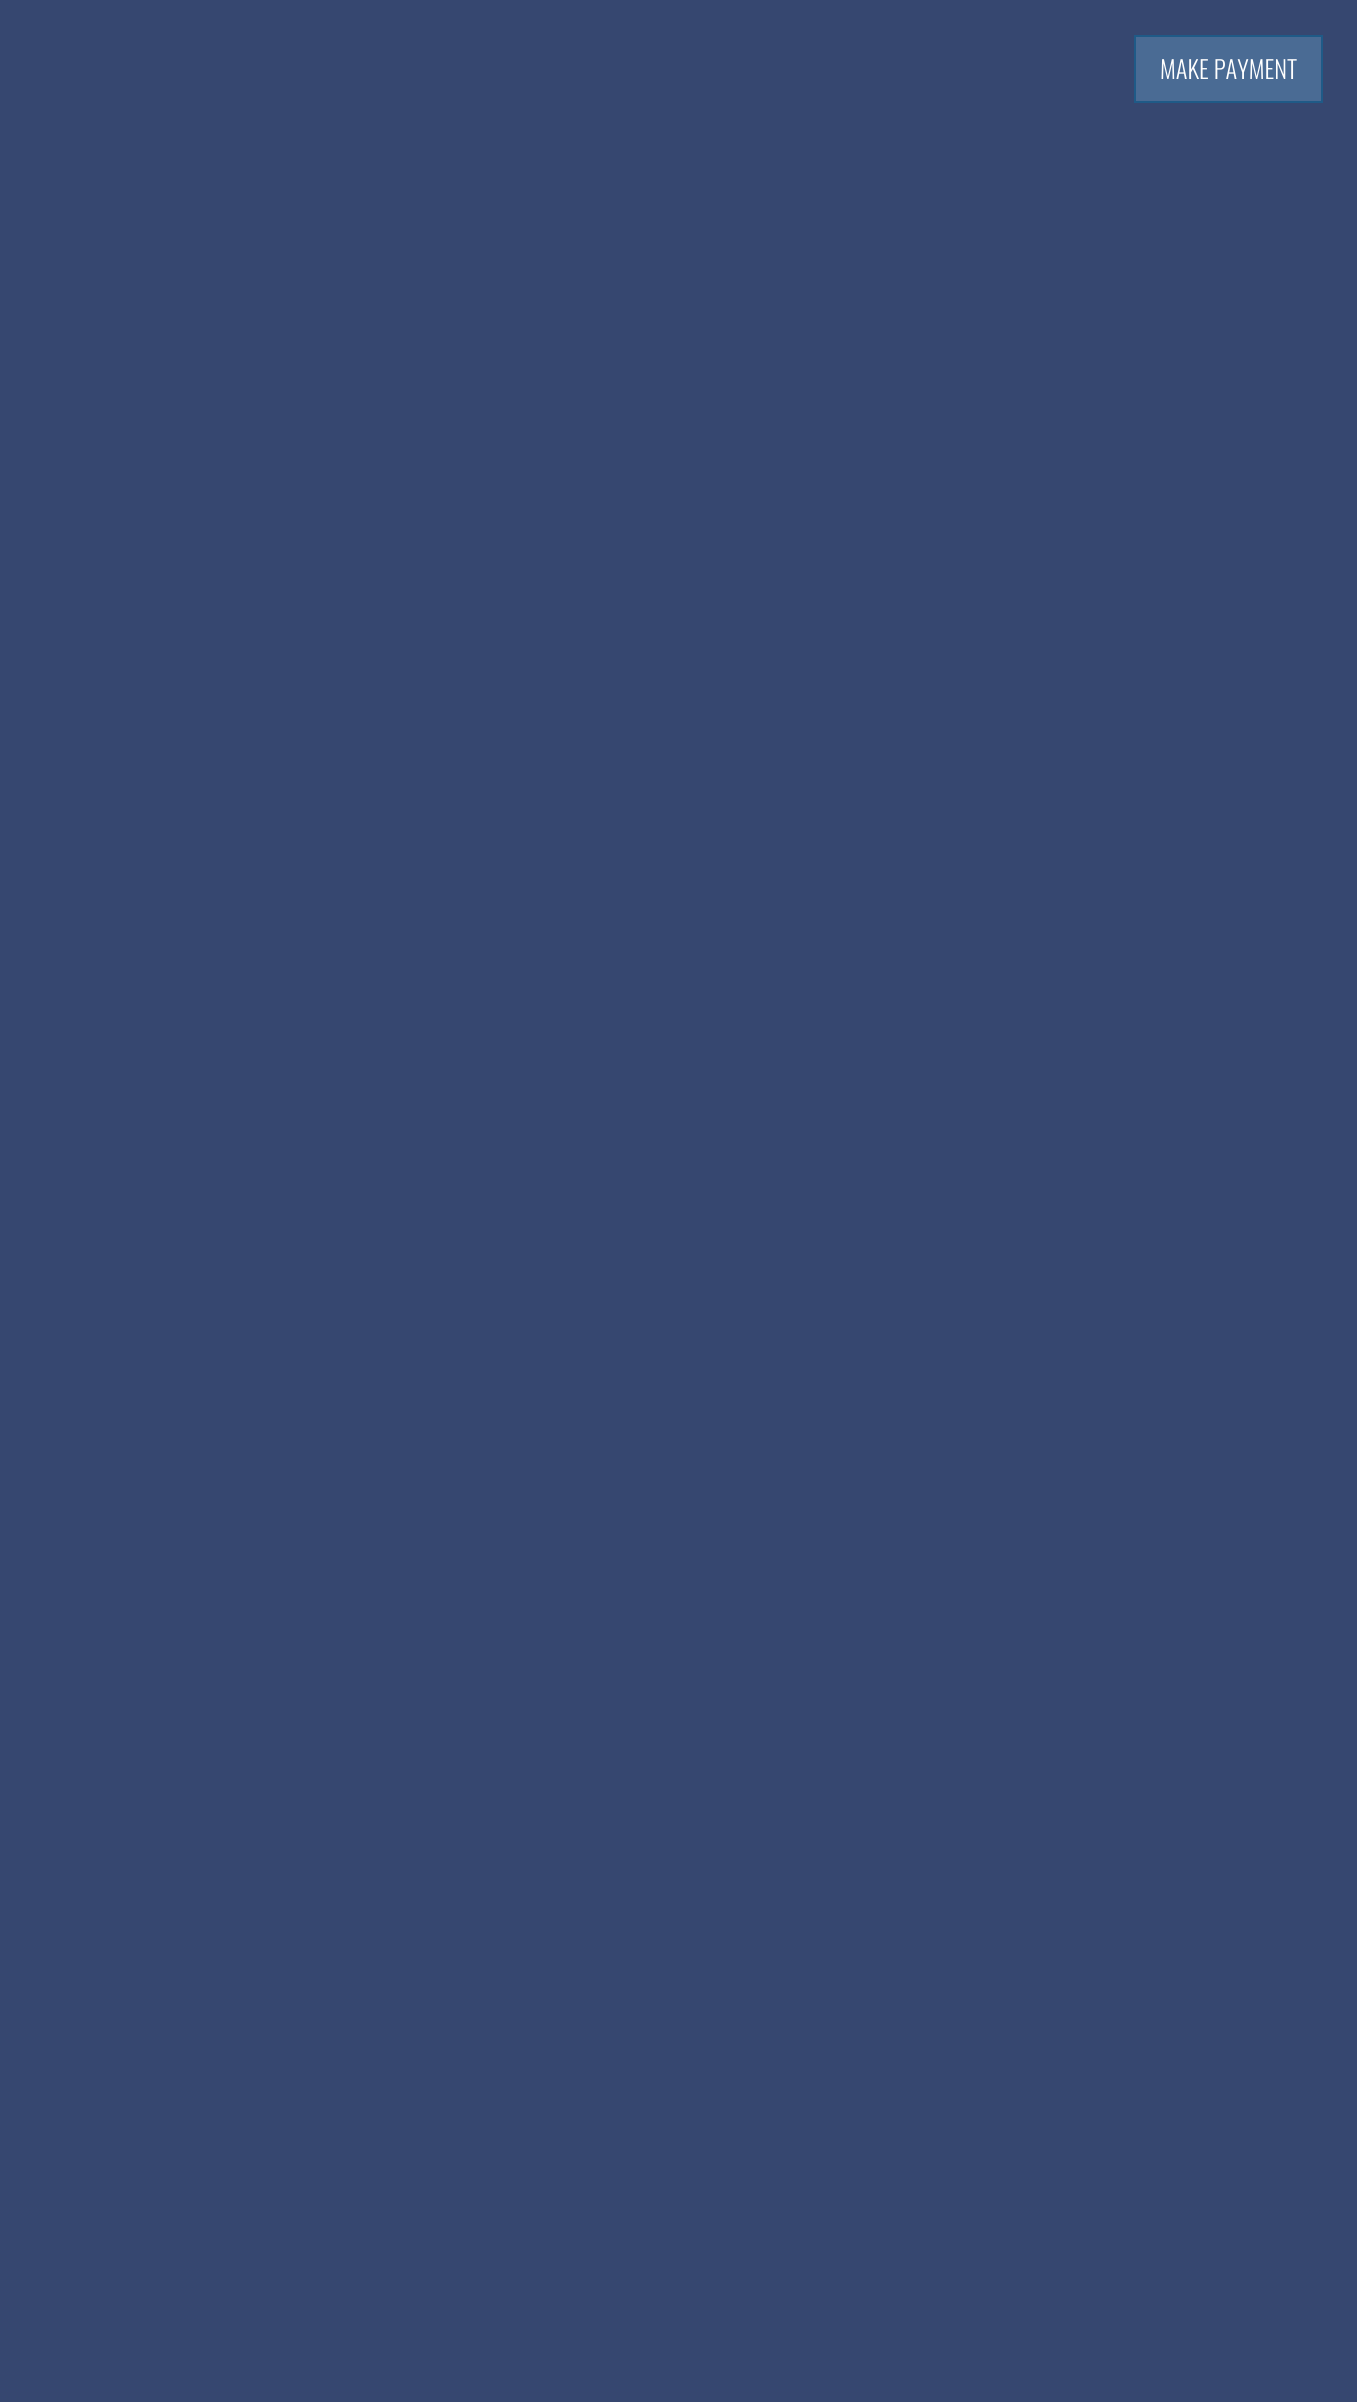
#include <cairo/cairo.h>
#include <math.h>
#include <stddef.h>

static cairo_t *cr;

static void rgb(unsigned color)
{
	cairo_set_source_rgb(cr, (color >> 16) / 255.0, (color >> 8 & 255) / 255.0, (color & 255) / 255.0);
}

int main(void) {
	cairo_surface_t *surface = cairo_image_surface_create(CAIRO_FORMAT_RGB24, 1357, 2402);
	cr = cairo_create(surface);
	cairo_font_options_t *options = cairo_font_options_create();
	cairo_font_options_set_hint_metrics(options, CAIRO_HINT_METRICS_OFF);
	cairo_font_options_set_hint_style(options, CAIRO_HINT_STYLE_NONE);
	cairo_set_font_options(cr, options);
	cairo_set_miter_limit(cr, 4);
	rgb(0x364770);
	cairo_paint(cr);
	rgb(0x4a6b94);
	cairo_rectangle(cr, 1135, 36, 187, 66);
	cairo_fill_preserve(cr);
	rgb(0x1f5a87);
	cairo_stroke(cr);
	cairo_select_font_face(cr, "Oswald Light", CAIRO_FONT_SLANT_NORMAL, CAIRO_FONT_WEIGHT_NORMAL);
	cairo_set_font_size(cr, 24.5);
	rgb(0xffffff);
	cairo_move_to(cr, 1160, 79);
	cairo_show_text(cr, "MAKE PAYMENT");
	cairo_surface_write_to_png(surface, "page.png");
	cairo_font_options_destroy(options);
	cairo_destroy(cr);
	cairo_surface_destroy(surface);
	return 0;
}
